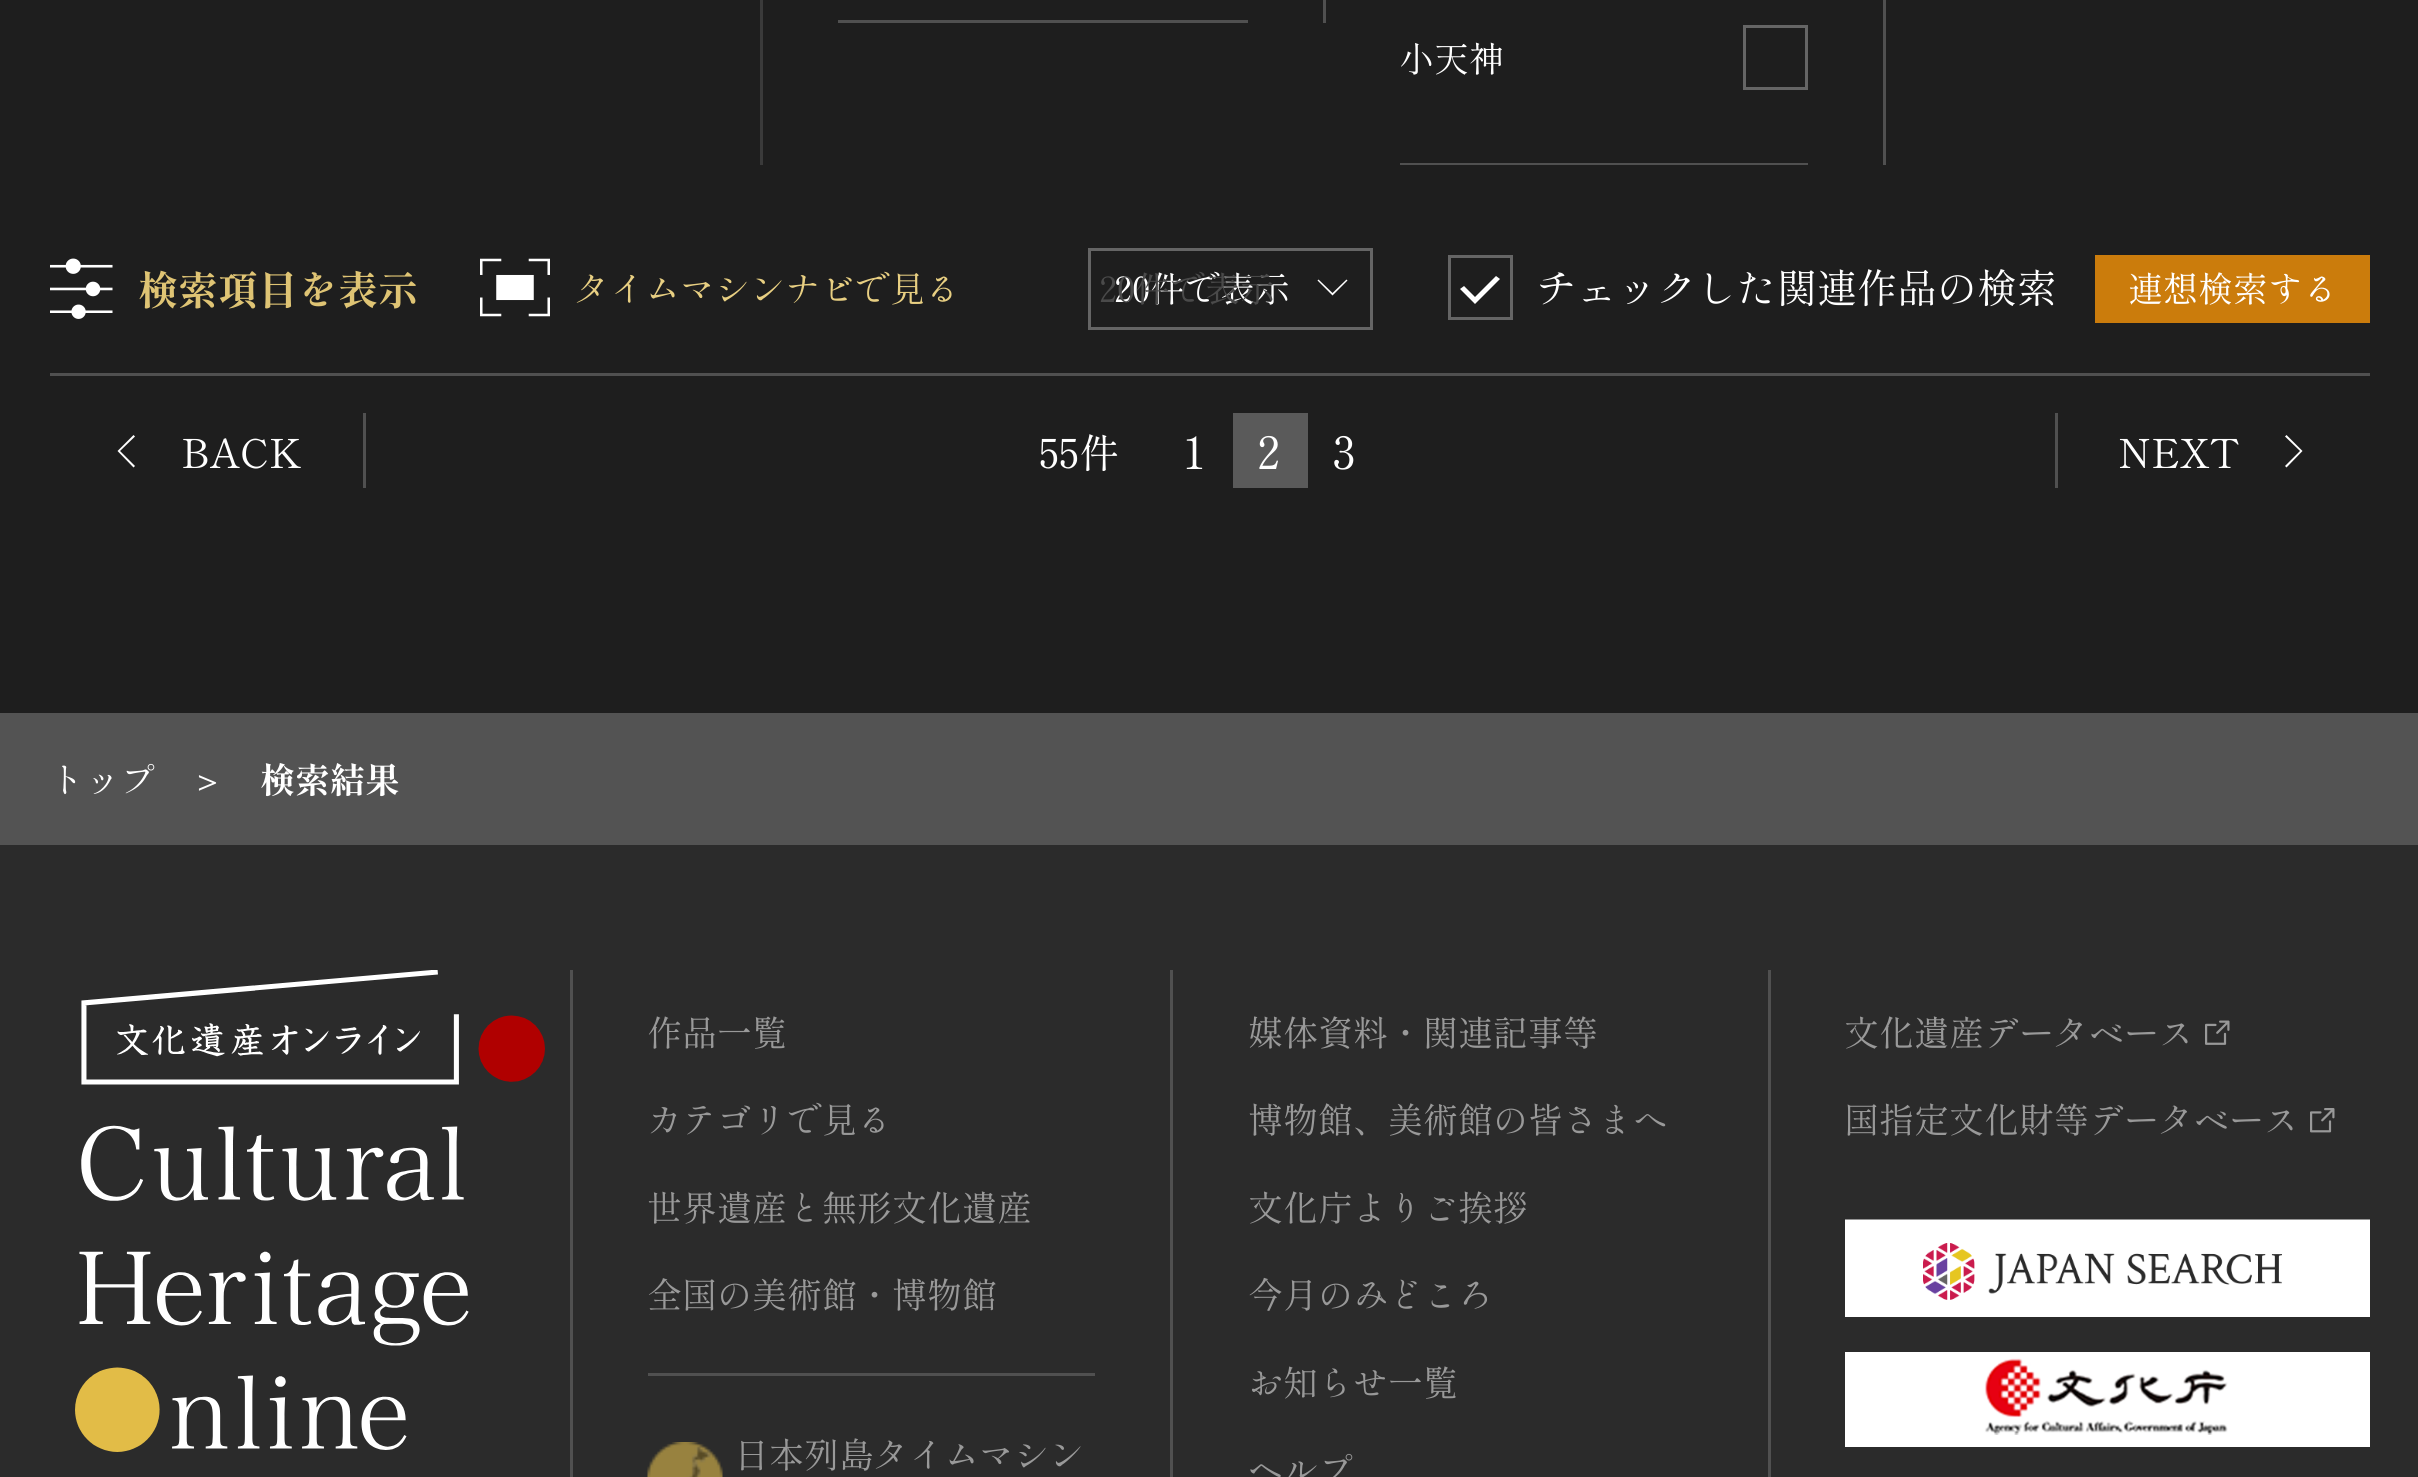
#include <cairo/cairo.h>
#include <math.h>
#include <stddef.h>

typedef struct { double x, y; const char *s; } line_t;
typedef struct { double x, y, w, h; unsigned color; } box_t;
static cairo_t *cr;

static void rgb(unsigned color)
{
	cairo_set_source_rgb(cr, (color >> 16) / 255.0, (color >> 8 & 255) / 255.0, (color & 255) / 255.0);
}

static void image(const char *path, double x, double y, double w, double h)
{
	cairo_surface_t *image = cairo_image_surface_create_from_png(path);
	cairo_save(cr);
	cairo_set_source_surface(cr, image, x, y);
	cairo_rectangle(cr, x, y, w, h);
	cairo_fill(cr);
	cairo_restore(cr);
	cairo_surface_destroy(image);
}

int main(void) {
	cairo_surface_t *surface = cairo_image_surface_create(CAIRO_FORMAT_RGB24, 2418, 1477);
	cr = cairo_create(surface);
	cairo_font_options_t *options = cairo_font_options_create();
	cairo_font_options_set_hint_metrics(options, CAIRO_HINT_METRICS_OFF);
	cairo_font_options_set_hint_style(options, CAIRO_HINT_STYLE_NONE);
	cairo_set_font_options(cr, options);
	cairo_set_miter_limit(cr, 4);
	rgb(0x1e1e1e);
	cairo_paint(cr);
	{
		static const box_t items[] = {
			{760, 0, 3, 165, 0x3a3a3a},
			{1323, 0, 3, 23, 0x505050},
			{838, 20, 410, 3, 0x505050},
			{1883, 0, 3, 165, 0x505050},
		};
		for (size_t i = 0; i < sizeof items / sizeof *items; i++) {
			rgb(items[i].color);
			cairo_rectangle(cr, items[i].x, items[i].y, items[i].w, items[i].h);
			cairo_fill(cr);
		}
	}
	cairo_rectangle(cr, 1744.5, 26.5, 62, 62);
	rgb(0x656565);
	cairo_set_line_width(cr, 3);
	cairo_stroke(cr);
	rgb(0x505050);
	cairo_rectangle(cr, 1400, 163, 408, 2);
	cairo_fill(cr);
	cairo_rectangle(cr, 50, 373, 2320, 3);
	cairo_fill(cr);
	image("img/1.png", 50, 258, 63, 61);
	image("img/2.png", 480, 258, 70, 59);
	cairo_rectangle(cr, 1089.5, 249.5, 282, 79);
	rgb(0x656565);
	cairo_stroke(cr);
	rgb(0xffffff);
	cairo_new_path(cr);
	cairo_move_to(cr, 1332.5, 295.5);
	cairo_line_to(cr, 1317.5, 280.5);
	cairo_line_to(cr, 1318.5, 279.5);
	cairo_line_to(cr, 1332.5, 293);
	cairo_line_to(cr, 1346.5, 279.5);
	cairo_line_to(cr, 1347.5, 280.5);
	cairo_close_path(cr);
	cairo_fill(cr);
	cairo_rectangle(cr, 1449.5, 256.5, 62, 62);
	rgb(0x656565);
	cairo_stroke(cr);
	rgb(0xffffff);
	cairo_new_path(cr);
	cairo_move_to(cr, 1475, 304);
	cairo_line_to(cr, 1460, 289);
	cairo_line_to(cr, 1464, 286);
	cairo_line_to(cr, 1475, 297);
	cairo_line_to(cr, 1496, 276);
	cairo_line_to(cr, 1500, 279);
	cairo_close_path(cr);
	cairo_fill(cr);
	rgb(0xcb7c0c);
	cairo_rectangle(cr, 2095, 255, 275, 68);
	cairo_fill(cr);
	rgb(0x505050);
	cairo_rectangle(cr, 363, 413, 3, 75);
	cairo_fill(cr);
	rgb(0xffffff);
	cairo_new_path(cr);
	cairo_move_to(cr, 117.5, 451);
	cairo_line_to(cr, 133.5, 435);
	cairo_line_to(cr, 135, 436.5);
	cairo_line_to(cr, 120, 451);
	cairo_line_to(cr, 135, 466);
	cairo_line_to(cr, 133.5, 467.5);
	cairo_close_path(cr);
	cairo_fill(cr);
	rgb(0x5a5a5a);
	cairo_rectangle(cr, 1233, 413, 75, 75);
	cairo_fill(cr);
	rgb(0x505050);
	cairo_rectangle(cr, 2055, 413, 3, 75);
	cairo_fill(cr);
	rgb(0xffffff);
	cairo_new_path(cr);
	cairo_move_to(cr, 2302.5, 451);
	cairo_line_to(cr, 2286.5, 467.5);
	cairo_line_to(cr, 2285, 466);
	cairo_line_to(cr, 2300, 451);
	cairo_line_to(cr, 2285, 436.5);
	cairo_line_to(cr, 2286.5, 435);
	cairo_close_path(cr);
	cairo_fill(cr);
	rgb(0x535353);
	cairo_rectangle(cr, 0, 713, 2418, 132);
	cairo_fill(cr);
	rgb(0x2b2b2b);
	cairo_rectangle(cr, 0, 845, 2418, 632);
	cairo_fill(cr);
	image("img/3.png", 75, 970, 470, 482);
	{
		static const box_t items[] = {
			{570, 970, 3, 507, 0x505050},
			{1170, 970, 3, 507, 0x505050},
			{1768, 970, 3, 507, 0x505050},
		};
		for (size_t i = 0; i < sizeof items / sizeof *items; i++) {
			rgb(items[i].color);
			cairo_rectangle(cr, items[i].x, items[i].y, items[i].w, items[i].h);
			cairo_fill(cr);
		}
	}
	image("img/4.png", 2205, 1020, 25, 25);
	image("img/5.png", 2310, 1108, 25, 25);
	image("img/6.png", 1845, 1219, 525, 98);
	image("img/7.png", 1845, 1352, 525, 95);
	cairo_rectangle(cr, 648, 1373, 447, 3);
	cairo_fill(cr);
	image("img/8.png", 647, 1442, 76, 35);
	cairo_select_font_face(cr, "Shippori Mincho", CAIRO_FONT_SLANT_NORMAL, CAIRO_FONT_WEIGHT_NORMAL);
	cairo_set_font_size(cr, 35);
	rgb(0xffffff);
	cairo_move_to(cr, 1399, 72);
	cairo_show_text(cr, "小天神");
	cairo_select_font_face(cr, "Shippori Mincho", CAIRO_FONT_SLANT_NORMAL, CAIRO_FONT_WEIGHT_BOLD);
	cairo_set_font_size(cr, 40);
	rgb(0xdfc474);
	cairo_move_to(cr, 138, 305);
	cairo_show_text(cr, "検索項目を表示");
	cairo_select_font_face(cr, "Shippori Mincho", CAIRO_FONT_SLANT_NORMAL, CAIRO_FONT_WEIGHT_NORMAL);
	cairo_set_font_size(cr, 35);
	rgb(0xe8cf82);
	cairo_move_to(cr, 575, 302);
	cairo_show_text(cr, "タイムマシンナビで見る");
	rgb(0xffffff);
	cairo_move_to(cr, 1114, 302);
	cairo_show_text(cr, "20件で表示");
	rgb(0x4a4a4a);
	cairo_move_to(cr, 1099, 302);
	cairo_show_text(cr, "20件で表示");
	cairo_set_font_size(cr, 40);
	rgb(0xffffff);
	cairo_move_to(cr, 1537, 303);
	cairo_show_text(cr, "チェックした関連作品の検索");
	cairo_set_font_size(cr, 35);
	cairo_move_to(cr, 2128, 302);
	cairo_show_text(cr, "連想検索する");
	cairo_set_font_size(cr, 40);
	cairo_move_to(cr, 181, 468);
	cairo_show_text(cr, "BACK");
	cairo_move_to(cr, 1039, 468);
	cairo_show_text(cr, "55件");
	cairo_set_font_size(cr, 45);
	{
		static const line_t items[] = {
			{1183, 469, "1"},
			{1257, 469, "2"},
			{1332, 469, "3"},
		};
		for (size_t i = 0; i < sizeof items / sizeof *items; i++) {
			cairo_move_to(cr, items[i].x, items[i].y);
			cairo_show_text(cr, items[i].s);
		}
	}
	cairo_set_font_size(cr, 40);
	cairo_move_to(cr, 2118, 468);
	cairo_show_text(cr, "NEXT");
	cairo_set_font_size(cr, 35);
	cairo_move_to(cr, 50, 793);
	cairo_show_text(cr, "トップ");
	cairo_select_font_face(cr, "WenQuanYi Zen Hei Medium", CAIRO_FONT_SLANT_NORMAL, CAIRO_FONT_WEIGHT_NORMAL);
	cairo_move_to(cr, 190, 793);
	cairo_show_text(cr, "＞");
	cairo_select_font_face(cr, "Shippori Mincho", CAIRO_FONT_SLANT_NORMAL, CAIRO_FONT_WEIGHT_BOLD);
	cairo_move_to(cr, 260, 793);
	cairo_show_text(cr, "検索結果");
	cairo_select_font_face(cr, "Shippori Mincho", CAIRO_FONT_SLANT_NORMAL, CAIRO_FONT_WEIGHT_NORMAL);
	rgb(0x999999);
	{
		static const line_t items[] = {
			{647, 1046, "作品一覧"},
			{647, 1133, "カテゴリで見る"},
			{647, 1221, "世界遺産と無形文化遺産"},
			{647, 1308, "全国の美術館・博物館"},
			{1248, 1046, "媒体資料・関連記事等"},
			{1248, 1133, "博物館、美術館の皆さまへ"},
			{1248, 1221, "文化庁よりご挨拶"},
			{1248, 1308, "今月のみどころ"},
			{1248, 1396, "お知らせ一覧"},
			{1248, 1483, "ヘルプ"},
			{1844, 1046, "文化遺産データベース"},
			{1844, 1133, "国指定文化財等データベース"},
			{734, 1468, "日本列島タイムマシン"},
		};
		for (size_t i = 0; i < sizeof items / sizeof *items; i++) {
			cairo_move_to(cr, items[i].x, items[i].y);
			cairo_show_text(cr, items[i].s);
		}
	}
	cairo_surface_write_to_png(surface, "page.png");
	cairo_font_options_destroy(options);
	cairo_destroy(cr);
	cairo_surface_destroy(surface);
	return 0;
}
